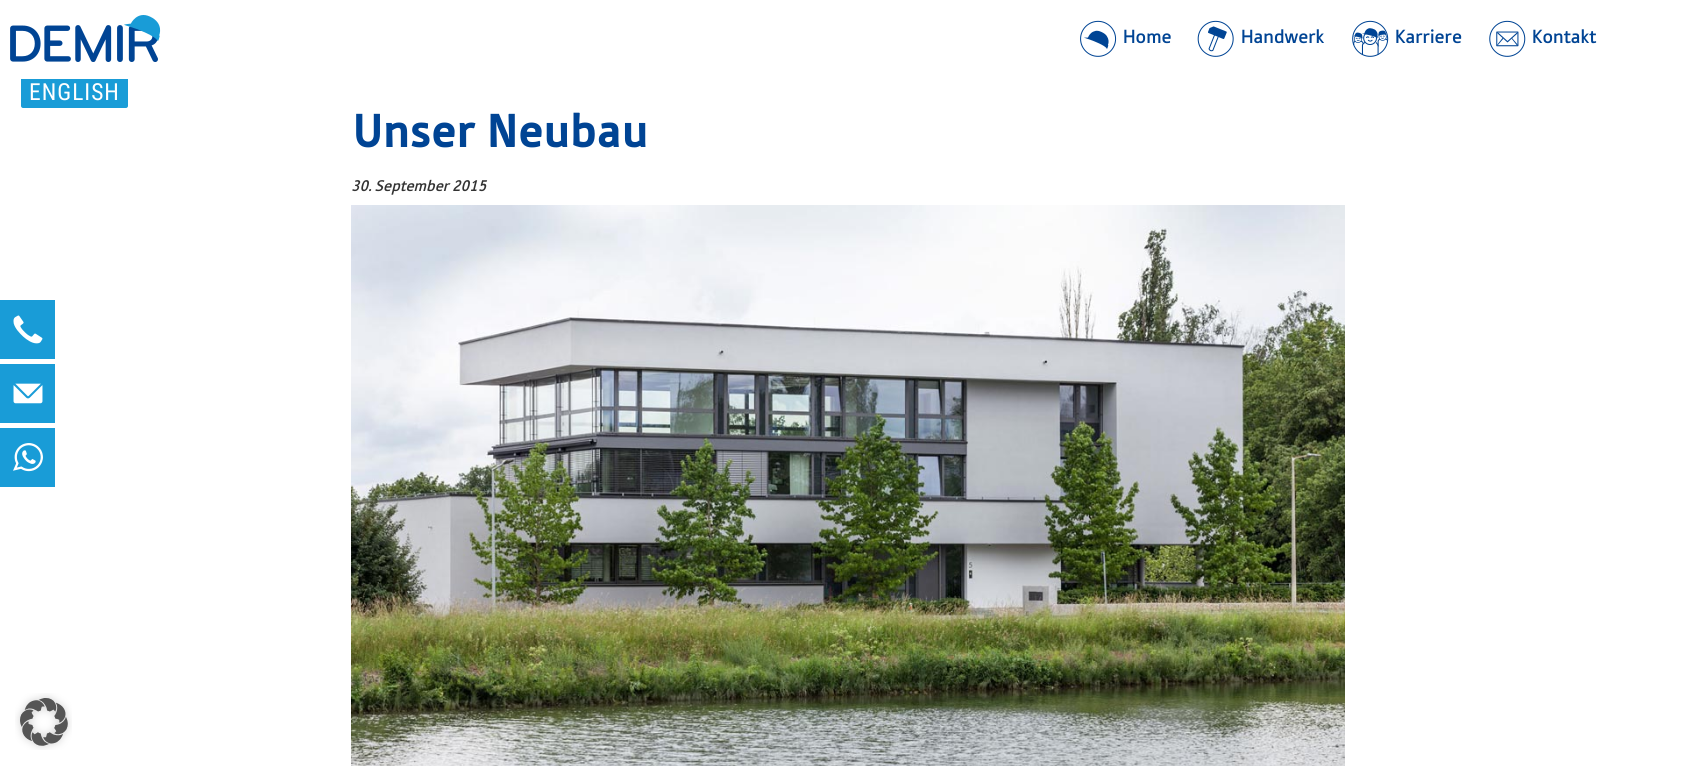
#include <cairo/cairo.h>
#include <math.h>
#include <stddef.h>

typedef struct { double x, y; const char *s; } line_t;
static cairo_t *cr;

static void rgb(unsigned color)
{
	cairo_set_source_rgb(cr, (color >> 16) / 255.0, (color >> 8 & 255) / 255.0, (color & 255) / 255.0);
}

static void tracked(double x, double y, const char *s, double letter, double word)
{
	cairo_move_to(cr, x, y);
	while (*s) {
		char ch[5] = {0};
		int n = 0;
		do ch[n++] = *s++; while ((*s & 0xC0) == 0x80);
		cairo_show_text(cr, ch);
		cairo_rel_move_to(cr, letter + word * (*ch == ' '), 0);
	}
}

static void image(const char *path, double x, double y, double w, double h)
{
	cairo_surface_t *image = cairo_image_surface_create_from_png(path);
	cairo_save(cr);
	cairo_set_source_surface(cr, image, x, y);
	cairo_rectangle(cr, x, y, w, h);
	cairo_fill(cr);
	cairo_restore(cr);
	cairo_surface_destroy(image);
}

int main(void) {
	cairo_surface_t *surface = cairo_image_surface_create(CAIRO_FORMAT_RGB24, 1696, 766);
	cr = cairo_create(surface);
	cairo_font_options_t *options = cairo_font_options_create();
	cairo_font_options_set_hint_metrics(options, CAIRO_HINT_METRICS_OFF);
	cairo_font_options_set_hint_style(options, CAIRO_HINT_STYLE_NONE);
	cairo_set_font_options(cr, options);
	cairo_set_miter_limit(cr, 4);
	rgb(0xffffff);
	cairo_paint(cr);
	image("img/1.png", 10, 15, 151, 47);
	image("img/2.png", 1080, 20, 37, 37);
	image("img/3.png", 1084, 30, 25, 19);
	image("img/4.png", 1197, 20, 37, 37);
	image("img/6.png", 1208, 34, 11, 18);
	rgb(0x004494);
	cairo_new_path(cr);
	cairo_move_to(cr, 1226, 32.5);
	cairo_line_to(cr, 1213.5, 27.5);
	cairo_line_to(cr, 1210, 28.5);
	cairo_line_to(cr, 1209, 32);
	cairo_line_to(cr, 1223.5, 38);
	cairo_close_path(cr);
	cairo_fill(cr);
	image("img/5.png", 1208, 26, 19, 13);
	image("img/25.png", 1353, 40, 11, 5);
	image("img/26.png", 1355, 40, 7, 2);
	image("img/13.png", 1353, 36, 9, 7);
	image("img/8.png", 1353, 32, 10, 7);
	image("img/21.png", 1377, 38, 11, 9);
	image("img/28.png", 1362, 43, 17, 5);
	image("img/27.png", 1361, 42, 18, 13);
	rgb(0xffffff);
	cairo_rectangle(cr, 1365, 42, 11, 1);
	cairo_fill(cr);
	image("img/11.png", 1363, 33, 14, 12);
	image("img/15.png", 1370, 36, 4, 2);
	image("img/9.png", 1362, 28, 16, 11);
	image("img/24.png", 1379, 38, 7, 2);
	image("img/12.png", 1378, 33, 9, 8);
	image("img/10.png", 1378, 30, 10, 6);
	image("img/14.png", 1366, 36, 4, 2);
	image("img/16.png", 1380, 35, 2, 2);
	image("img/17.png", 1382, 35, 3, 2);
	image("img/18.png", 1355, 37, 3, 2);
	image("img/19.png", 1358, 37, 3, 2);
	image("img/20.png", 1381, 37, 3, 2);
	image("img/22.png", 1356, 39, 4, 2);
	image("img/23.png", 1367, 39, 6, 3);
	image("img/7.png", 1352, 20, 37, 37);
	image("img/29.png", 1489, 20, 37, 37);
	image("img/30.png", 1496, 31, 23, 16);
	rgb(0x004494);
	cairo_new_path(cr);
	cairo_move_to(cr, 1507.5, 42.5);
	cairo_line_to(cr, 1497, 33);
	cairo_line_to(cr, 1497.5, 32);
	cairo_line_to(cr, 1507.5, 41);
	cairo_line_to(cr, 1517.5, 32);
	cairo_line_to(cr, 1518, 33);
	cairo_close_path(cr);
	cairo_fill(cr);
	cairo_new_path(cr);
	cairo_move_to(cr, 1512, 38);
	cairo_line_to(cr, 1518, 45);
	cairo_line_to(cr, 1517, 45.5);
	cairo_line_to(cr, 1511.5, 38.5);
	cairo_close_path(cr);
	cairo_move_to(cr, 1502.5, 38);
	cairo_line_to(cr, 1503.5, 38.5);
	cairo_line_to(cr, 1497.5, 45.5);
	cairo_line_to(cr, 1497, 45);
	cairo_close_path(cr);
	cairo_fill(cr);
	rgb(0x199cd7);
	cairo_new_path(cr);
	cairo_move_to(cr, 21, 79);
	cairo_line_to(cr, 128, 79);
	cairo_line_to(cr, 128, 106);
	cairo_curve_to(cr, 128, 107, 127, 108, 126, 108);
	cairo_line_to(cr, 23, 108);
	cairo_curve_to(cr, 22, 108, 21, 107, 21, 106);
	cairo_close_path(cr);
	cairo_fill(cr);
	image("img/31.png", 351, 205, 994, 561);
	image("img/32.png", 15, 693, 57, 57);
	cairo_rectangle(cr, 0, 300, 55, 59);
	cairo_fill(cr);
	image("img/33.png", 13, 315, 30, 29);
	cairo_rectangle(cr, 0, 364, 55, 59);
	cairo_fill(cr);
	image("img/34.png", 13, 383, 30, 21);
	cairo_rectangle(cr, 0, 428, 55, 59);
	cairo_fill(cr);
	image("img/35.png", 13, 443, 30, 29);
	cairo_select_font_face(cr, "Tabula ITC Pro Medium", CAIRO_FONT_SLANT_NORMAL, CAIRO_FONT_WEIGHT_NORMAL);
	cairo_set_font_size(cr, 20);
	rgb(0x004494);
	{
		static const line_t items[] = {
			{1123, 43, "Home"},
			{1241, 43, "Handwerk"},
			{1395, 43, "Karriere"},
			{1532, 43, "Kontakt"},
		};
		for (size_t i = 0; i < sizeof items / sizeof *items; i++) {
			cairo_move_to(cr, items[i].x, items[i].y);
			cairo_show_text(cr, items[i].s);
		}
	}
	cairo_select_font_face(cr, "Roboto Condensed", CAIRO_FONT_SLANT_NORMAL, CAIRO_FONT_WEIGHT_NORMAL);
	cairo_set_font_size(cr, 23.5);
	rgb(0xffffff);
	tracked(29, 100, "ENGLISH", 1, 0);
	cairo_select_font_face(cr, "Tabula ITC Pro", CAIRO_FONT_SLANT_NORMAL, CAIRO_FONT_WEIGHT_BOLD);
	cairo_set_font_size(cr, 48);
	rgb(0x004494);
	tracked(353, 147, "Unser Neubau", 1.5, 0);
	cairo_select_font_face(cr, "Tabula ITC Pro Medium", CAIRO_FONT_SLANT_ITALIC, CAIRO_FONT_WEIGHT_NORMAL);
	cairo_set_font_size(cr, 16.25);
	rgb(0x333333);
	cairo_move_to(cr, 351, 191);
	cairo_show_text(cr, "30. September 2015");
	cairo_surface_write_to_png(surface, "page.png");
	cairo_font_options_destroy(options);
	cairo_destroy(cr);
	cairo_surface_destroy(surface);
	return 0;
}
